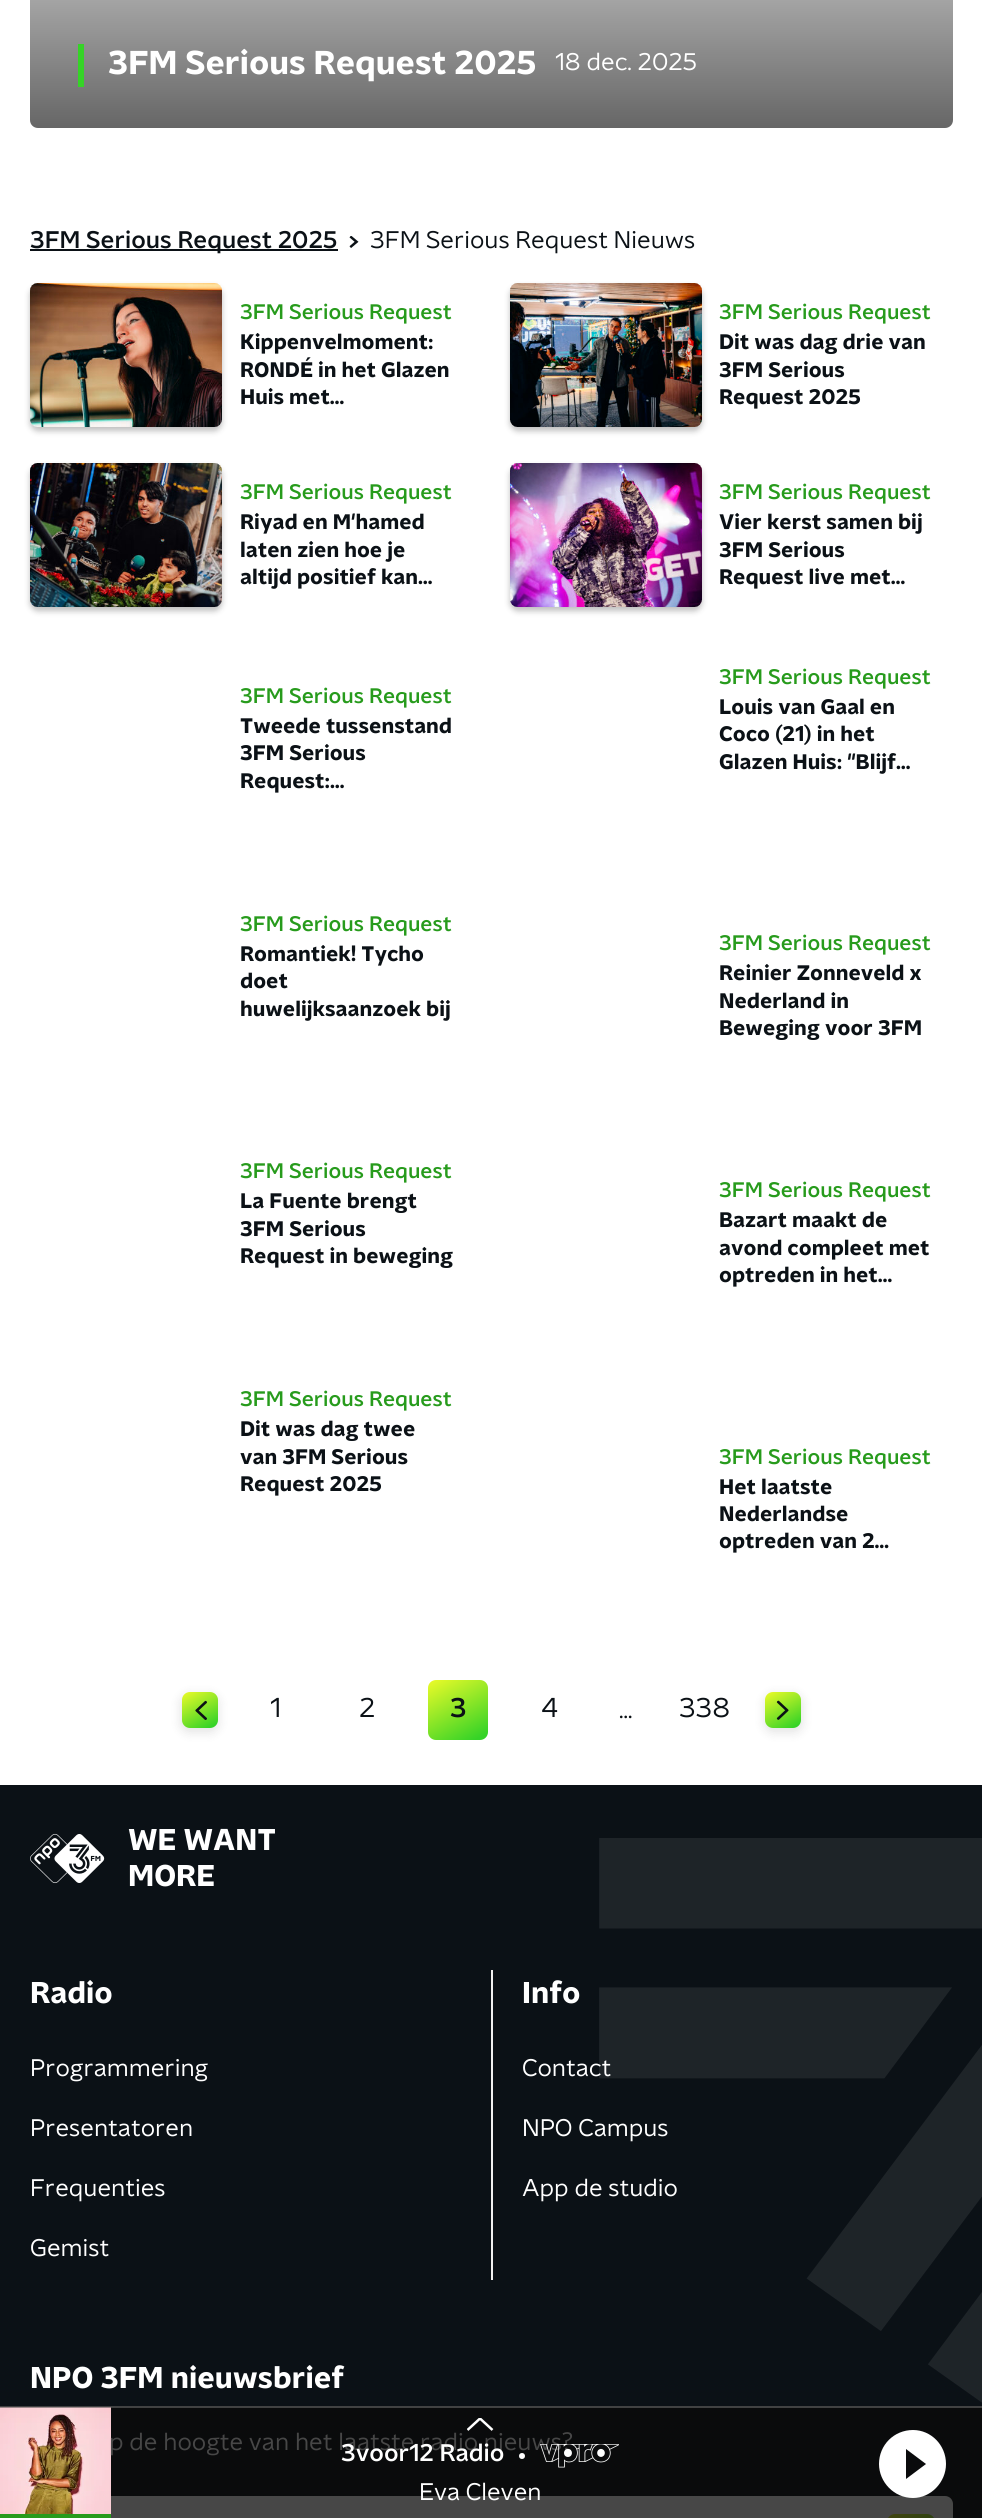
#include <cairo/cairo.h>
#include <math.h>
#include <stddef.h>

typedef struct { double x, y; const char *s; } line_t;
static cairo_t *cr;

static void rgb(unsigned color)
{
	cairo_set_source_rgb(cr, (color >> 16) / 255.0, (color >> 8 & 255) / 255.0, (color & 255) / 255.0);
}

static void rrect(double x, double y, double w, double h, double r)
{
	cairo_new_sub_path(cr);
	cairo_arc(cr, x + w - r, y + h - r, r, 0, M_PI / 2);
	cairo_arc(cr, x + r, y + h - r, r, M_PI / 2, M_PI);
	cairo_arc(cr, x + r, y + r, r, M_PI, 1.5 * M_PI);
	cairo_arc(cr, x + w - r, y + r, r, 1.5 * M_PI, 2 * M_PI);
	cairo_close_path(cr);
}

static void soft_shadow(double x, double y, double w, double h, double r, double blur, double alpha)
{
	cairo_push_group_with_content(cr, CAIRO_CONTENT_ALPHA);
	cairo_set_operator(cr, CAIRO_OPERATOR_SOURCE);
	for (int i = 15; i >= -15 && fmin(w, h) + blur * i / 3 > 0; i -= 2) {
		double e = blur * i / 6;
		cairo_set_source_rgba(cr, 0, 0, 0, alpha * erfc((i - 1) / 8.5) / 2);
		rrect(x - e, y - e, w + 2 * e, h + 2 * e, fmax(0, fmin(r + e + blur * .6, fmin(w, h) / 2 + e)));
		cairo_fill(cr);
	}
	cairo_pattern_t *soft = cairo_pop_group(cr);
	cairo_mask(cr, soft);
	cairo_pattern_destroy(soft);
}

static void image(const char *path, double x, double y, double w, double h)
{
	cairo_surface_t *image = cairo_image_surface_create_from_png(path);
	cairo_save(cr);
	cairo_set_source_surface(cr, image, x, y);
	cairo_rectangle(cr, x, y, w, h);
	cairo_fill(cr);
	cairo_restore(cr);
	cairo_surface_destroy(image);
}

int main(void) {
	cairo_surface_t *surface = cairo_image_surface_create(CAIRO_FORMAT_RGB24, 982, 2518);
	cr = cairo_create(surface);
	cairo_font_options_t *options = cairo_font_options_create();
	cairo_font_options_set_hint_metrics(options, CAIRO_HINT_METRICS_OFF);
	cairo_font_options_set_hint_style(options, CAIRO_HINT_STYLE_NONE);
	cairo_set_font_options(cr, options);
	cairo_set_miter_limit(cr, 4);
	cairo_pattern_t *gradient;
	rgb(0xffffff);
	cairo_paint(cr);
	gradient = cairo_pattern_create_linear(491, 128, 491, -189);
	cairo_pattern_add_color_stop_rgba(gradient, 0, 0.4, 0.4, 0.4, 1);
	cairo_pattern_add_color_stop_rgba(gradient, 1, 1, 1, 1, 1);
	cairo_set_source(cr, gradient);
	cairo_pattern_destroy(gradient);
	cairo_new_path(cr);
	cairo_move_to(cr, 30, -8);
	cairo_line_to(cr, 953, -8);
	cairo_line_to(cr, 953, 120);
	cairo_curve_to(cr, 953, 124.5, 949.5, 128, 945, 128);
	cairo_line_to(cr, 38, 128);
	cairo_curve_to(cr, 33.5, 128, 30, 124.5, 30, 120);
	cairo_close_path(cr);
	cairo_fill(cr);
	rgb(0x35d327);
	cairo_rectangle(cr, 78, 44, 6, 43);
	cairo_fill(cr);
	rgb(0x0b1116);
	cairo_rectangle(cr, 30, 249, 308, 2);
	cairo_fill(cr);
	image("img/1.png", 349, 236, 10, 12);
	rgb(0x000000);
	soft_shadow(30, 287, 192, 144, 8, 3, 0.25);
	image("img/2.png", 30, 283, 192, 144);
	soft_shadow(510, 287, 192, 144, 8, 3, 0.25);
	image("img/3.png", 510, 283, 192, 144);
	soft_shadow(30, 467, 192, 144, 8, 3, 0.25);
	image("img/4.png", 30, 463, 192, 144);
	soft_shadow(510, 467, 192, 144, 8, 3, 0.25);
	image("img/5.png", 510, 463, 192, 144);
	soft_shadow(180, 1694, 39, 39, 9, 5, 0.1);
	gradient = cairo_pattern_create_linear(185, 1685, 211, 1731);
	cairo_pattern_add_color_stop_rgba(gradient, 0, 1, 1, 0.157, 1);
	cairo_pattern_add_color_stop_rgba(gradient, 0.93, 0.208, 0.827, 0.153, 1);
	cairo_set_source(cr, gradient);
	cairo_pattern_destroy(gradient);
	rrect(182, 1692, 36, 36, 8);
	cairo_fill(cr);
	image("img/6.png", 195, 1700, 12, 20);
	gradient = cairo_pattern_create_linear(434, 1668, 477, 1746);
	cairo_pattern_add_color_stop_rgba(gradient, 0, 1, 1, 0.157, 1);
	cairo_pattern_add_color_stop_rgba(gradient, 0.93, 0.208, 0.827, 0.153, 1);
	cairo_set_source(cr, gradient);
	cairo_pattern_destroy(gradient);
	rrect(428, 1680, 60, 60, 8);
	cairo_fill(cr);
	rgb(0x000000);
	soft_shadow(764, 1694, 39, 39, 9, 5, 0.1);
	gradient = cairo_pattern_create_linear(769, 1685, 795, 1731);
	cairo_pattern_add_color_stop_rgba(gradient, 0, 1, 1, 0.157, 1);
	cairo_pattern_add_color_stop_rgba(gradient, 0.93, 0.208, 0.827, 0.153, 1);
	cairo_set_source(cr, gradient);
	cairo_pattern_destroy(gradient);
	rrect(765, 1692, 36, 36, 8);
	cairo_fill(cr);
	image("img/7.png", 776, 1700, 13, 20);
	rgb(0x0b1116);
	cairo_rectangle(cr, 0, 1785, 982, 621);
	cairo_fill(cr);
	rgb(0x0a0b0c);
	cairo_rectangle(cr, 111, 2408, 871, 110);
	cairo_fill(cr);
	image("img/8.png", 30, 1833, 75, 51);
	rgb(0xf1f1f1);
	cairo_rectangle(cr, 491, 1970, 2, 310);
	cairo_fill(cr);
	rgb(0x474747);
	rrect(30, 2496, 923, 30, 8);
	cairo_fill(cr);
	gradient = cairo_pattern_create_linear(892, 2504, 926, 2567);
	cairo_pattern_add_color_stop_rgba(gradient, 0, 0.278, 0.278, 0.067, 1);
	cairo_pattern_add_color_stop_rgba(gradient, 0.93, 0.078, 0.235, 0.067, 1);
	cairo_set_source(cr, gradient);
	cairo_pattern_destroy(gradient);
	rrect(887, 2514, 48, 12, 8);
	cairo_fill(cr);
	image("img/9.png", 599, 1838, 383, 565);
	rgb(0x414242);
	cairo_rectangle(cr, 0, 2406, 982, 2);
	cairo_fill(cr);
	image("img/10.png", 0, 2407, 111, 107);
	rgb(0x279b1c);
	cairo_rectangle(cr, 0, 2514, 111, 4);
	cairo_fill(cr);
	cairo_save(cr);
	cairo_rectangle(cr, 467, 2418, 27, 14);
	cairo_clip(cr);
	cairo_new_path(cr);
	cairo_move_to(cr, 492.5, 2430);
	cairo_line_to(cr, 480, 2418.5);
	cairo_line_to(cr, 467.5, 2430);
	rgb(0xffffff);
	cairo_set_line_width(cr, 2.5);
	cairo_stroke(cr);
	cairo_restore(cr);
	rgb(0xffffff);
	cairo_new_path(cr);
	cairo_move_to(cr, 913, 2430);
	cairo_curve_to(cr, 894, 2430, 879, 2445, 879, 2464);
	cairo_curve_to(cr, 879, 2482, 894, 2498, 913, 2498);
	cairo_curve_to(cr, 931, 2498, 946, 2482, 946, 2464);
	cairo_curve_to(cr, 946, 2445, 931, 2430, 913, 2430);
	cairo_close_path(cr);
	cairo_move_to(cr, 906, 2479);
	cairo_line_to(cr, 906, 2449);
	cairo_line_to(cr, 926, 2464);
	cairo_close_path(cr);
	cairo_fill(cr);
	cairo_select_font_face(cr, "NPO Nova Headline", CAIRO_FONT_SLANT_NORMAL, CAIRO_FONT_WEIGHT_BOLD);
	cairo_set_font_size(cr, 33);
	cairo_move_to(cr, 108, 74);
	cairo_show_text(cr, "3FM Serious Request 2025");
	cairo_select_font_face(cr, "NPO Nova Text", CAIRO_FONT_SLANT_NORMAL, CAIRO_FONT_WEIGHT_NORMAL);
	cairo_set_font_size(cr, 24);
	cairo_move_to(cr, 555, 70);
	cairo_show_text(cr, "18 dec. 2025");
	cairo_select_font_face(cr, "NPO Nova Text Medium", CAIRO_FONT_SLANT_NORMAL, CAIRO_FONT_WEIGHT_NORMAL);
	rgb(0x0b1116);
	cairo_move_to(cr, 30, 248);
	cairo_show_text(cr, "3FM Serious Request 2025");
	cairo_select_font_face(cr, "NPO Nova Text", CAIRO_FONT_SLANT_NORMAL, CAIRO_FONT_WEIGHT_NORMAL);
	cairo_move_to(cr, 370, 248);
	cairo_show_text(cr, "3FM Serious Request Nieuws");
	cairo_select_font_face(cr, "NPO Nova Text Medium", CAIRO_FONT_SLANT_NORMAL, CAIRO_FONT_WEIGHT_NORMAL);
	cairo_set_font_size(cr, 21);
	rgb(0x279b1c);
	cairo_move_to(cr, 240, 319);
	cairo_show_text(cr, "3FM Serious Request");
	cairo_select_font_face(cr, "NPO Nova Headline", CAIRO_FONT_SLANT_NORMAL, CAIRO_FONT_WEIGHT_BOLD);
	rgb(0x0b1116);
	{
		static const line_t items[] = {
			{240, 349, "Kippenvelmoment:"},
			{240, 377, "RONDÉ in het Glazen"},
			{240, 404, "Huis met…"},
		};
		for (size_t i = 0; i < sizeof items / sizeof *items; i++) {
			cairo_move_to(cr, items[i].x, items[i].y);
			cairo_show_text(cr, items[i].s);
		}
	}
	cairo_select_font_face(cr, "NPO Nova Text Medium", CAIRO_FONT_SLANT_NORMAL, CAIRO_FONT_WEIGHT_NORMAL);
	rgb(0x279b1c);
	cairo_move_to(cr, 719, 319);
	cairo_show_text(cr, "3FM Serious Request");
	cairo_select_font_face(cr, "NPO Nova Headline", CAIRO_FONT_SLANT_NORMAL, CAIRO_FONT_WEIGHT_BOLD);
	rgb(0x0b1116);
	{
		static const line_t items[] = {
			{719, 349, "Dit was dag drie van"},
			{719, 377, "3FM Serious"},
			{719, 404, "Request 2025"},
		};
		for (size_t i = 0; i < sizeof items / sizeof *items; i++) {
			cairo_move_to(cr, items[i].x, items[i].y);
			cairo_show_text(cr, items[i].s);
		}
	}
	cairo_select_font_face(cr, "NPO Nova Text Medium", CAIRO_FONT_SLANT_NORMAL, CAIRO_FONT_WEIGHT_NORMAL);
	rgb(0x279b1c);
	cairo_move_to(cr, 240, 499);
	cairo_show_text(cr, "3FM Serious Request");
	cairo_select_font_face(cr, "NPO Nova Headline", CAIRO_FONT_SLANT_NORMAL, CAIRO_FONT_WEIGHT_BOLD);
	rgb(0x0b1116);
	{
		static const line_t items[] = {
			{240, 529, "Riyad en M'hamed"},
			{240, 557, "laten zien hoe je"},
			{240, 584, "altijd positief kan…"},
		};
		for (size_t i = 0; i < sizeof items / sizeof *items; i++) {
			cairo_move_to(cr, items[i].x, items[i].y);
			cairo_show_text(cr, items[i].s);
		}
	}
	cairo_select_font_face(cr, "NPO Nova Text Medium", CAIRO_FONT_SLANT_NORMAL, CAIRO_FONT_WEIGHT_NORMAL);
	rgb(0x279b1c);
	cairo_move_to(cr, 719, 499);
	cairo_show_text(cr, "3FM Serious Request");
	cairo_select_font_face(cr, "NPO Nova Headline", CAIRO_FONT_SLANT_NORMAL, CAIRO_FONT_WEIGHT_BOLD);
	rgb(0x0b1116);
	{
		static const line_t items[] = {
			{719, 529, "Vier kerst samen bij"},
			{719, 557, "3FM Serious"},
			{719, 584, "Request live met…"},
		};
		for (size_t i = 0; i < sizeof items / sizeof *items; i++) {
			cairo_move_to(cr, items[i].x, items[i].y);
			cairo_show_text(cr, items[i].s);
		}
	}
	cairo_select_font_face(cr, "NPO Nova Text Medium", CAIRO_FONT_SLANT_NORMAL, CAIRO_FONT_WEIGHT_NORMAL);
	rgb(0x279b1c);
	cairo_move_to(cr, 240, 703);
	cairo_show_text(cr, "3FM Serious Request");
	cairo_select_font_face(cr, "NPO Nova Headline", CAIRO_FONT_SLANT_NORMAL, CAIRO_FONT_WEIGHT_BOLD);
	rgb(0x0b1116);
	{
		static const line_t items[] = {
			{240, 733, "Tweede tussenstand"},
			{240, 760, "3FM Serious"},
			{240, 788, "Request:…"},
		};
		for (size_t i = 0; i < sizeof items / sizeof *items; i++) {
			cairo_move_to(cr, items[i].x, items[i].y);
			cairo_show_text(cr, items[i].s);
		}
	}
	cairo_select_font_face(cr, "NPO Nova Text Medium", CAIRO_FONT_SLANT_NORMAL, CAIRO_FONT_WEIGHT_NORMAL);
	rgb(0x279b1c);
	cairo_move_to(cr, 719, 684);
	cairo_show_text(cr, "3FM Serious Request");
	cairo_select_font_face(cr, "NPO Nova Headline", CAIRO_FONT_SLANT_NORMAL, CAIRO_FONT_WEIGHT_BOLD);
	rgb(0x0b1116);
	{
		static const line_t items[] = {
			{719, 714, "Louis van Gaal en"},
			{719, 741, "Coco (21) in het"},
			{719, 769, "Glazen Huis: \"Blijf…"},
		};
		for (size_t i = 0; i < sizeof items / sizeof *items; i++) {
			cairo_move_to(cr, items[i].x, items[i].y);
			cairo_show_text(cr, items[i].s);
		}
	}
	cairo_select_font_face(cr, "NPO Nova Text Medium", CAIRO_FONT_SLANT_NORMAL, CAIRO_FONT_WEIGHT_NORMAL);
	rgb(0x279b1c);
	cairo_move_to(cr, 240, 931);
	cairo_show_text(cr, "3FM Serious Request");
	cairo_select_font_face(cr, "NPO Nova Headline", CAIRO_FONT_SLANT_NORMAL, CAIRO_FONT_WEIGHT_BOLD);
	rgb(0x0b1116);
	{
		static const line_t items[] = {
			{240, 961, "Romantiek! Tycho"},
			{240, 988, "doet"},
			{240, 1016, "huwelijksaanzoek bij"},
		};
		for (size_t i = 0; i < sizeof items / sizeof *items; i++) {
			cairo_move_to(cr, items[i].x, items[i].y);
			cairo_show_text(cr, items[i].s);
		}
	}
	cairo_select_font_face(cr, "NPO Nova Text Medium", CAIRO_FONT_SLANT_NORMAL, CAIRO_FONT_WEIGHT_NORMAL);
	rgb(0x279b1c);
	cairo_move_to(cr, 719, 950);
	cairo_show_text(cr, "3FM Serious Request");
	cairo_select_font_face(cr, "NPO Nova Headline", CAIRO_FONT_SLANT_NORMAL, CAIRO_FONT_WEIGHT_BOLD);
	rgb(0x0b1116);
	{
		static const line_t items[] = {
			{719, 980, "Reinier Zonneveld x"},
			{719, 1008, "Nederland in"},
			{719, 1035, "Beweging voor 3FM"},
		};
		for (size_t i = 0; i < sizeof items / sizeof *items; i++) {
			cairo_move_to(cr, items[i].x, items[i].y);
			cairo_show_text(cr, items[i].s);
		}
	}
	cairo_select_font_face(cr, "NPO Nova Text Medium", CAIRO_FONT_SLANT_NORMAL, CAIRO_FONT_WEIGHT_NORMAL);
	rgb(0x279b1c);
	cairo_move_to(cr, 240, 1178);
	cairo_show_text(cr, "3FM Serious Request");
	cairo_select_font_face(cr, "NPO Nova Headline", CAIRO_FONT_SLANT_NORMAL, CAIRO_FONT_WEIGHT_BOLD);
	rgb(0x0b1116);
	{
		static const line_t items[] = {
			{240, 1208, "La Fuente brengt"},
			{240, 1236, "3FM Serious"},
			{240, 1263, "Request in beweging"},
		};
		for (size_t i = 0; i < sizeof items / sizeof *items; i++) {
			cairo_move_to(cr, items[i].x, items[i].y);
			cairo_show_text(cr, items[i].s);
		}
	}
	cairo_select_font_face(cr, "NPO Nova Text Medium", CAIRO_FONT_SLANT_NORMAL, CAIRO_FONT_WEIGHT_NORMAL);
	rgb(0x279b1c);
	cairo_move_to(cr, 719, 1197);
	cairo_show_text(cr, "3FM Serious Request");
	cairo_select_font_face(cr, "NPO Nova Headline", CAIRO_FONT_SLANT_NORMAL, CAIRO_FONT_WEIGHT_BOLD);
	rgb(0x0b1116);
	{
		static const line_t items[] = {
			{719, 1227, "Bazart maakt de"},
			{719, 1255, "avond compleet met"},
			{719, 1282, "optreden in het…"},
		};
		for (size_t i = 0; i < sizeof items / sizeof *items; i++) {
			cairo_move_to(cr, items[i].x, items[i].y);
			cairo_show_text(cr, items[i].s);
		}
	}
	cairo_select_font_face(cr, "NPO Nova Text Medium", CAIRO_FONT_SLANT_NORMAL, CAIRO_FONT_WEIGHT_NORMAL);
	rgb(0x279b1c);
	cairo_move_to(cr, 240, 1406);
	cairo_show_text(cr, "3FM Serious Request");
	cairo_select_font_face(cr, "NPO Nova Headline", CAIRO_FONT_SLANT_NORMAL, CAIRO_FONT_WEIGHT_BOLD);
	rgb(0x0b1116);
	{
		static const line_t items[] = {
			{240, 1436, "Dit was dag twee"},
			{240, 1464, "van 3FM Serious"},
			{240, 1491, "Request 2025"},
		};
		for (size_t i = 0; i < sizeof items / sizeof *items; i++) {
			cairo_move_to(cr, items[i].x, items[i].y);
			cairo_show_text(cr, items[i].s);
		}
	}
	cairo_select_font_face(cr, "NPO Nova Text Medium", CAIRO_FONT_SLANT_NORMAL, CAIRO_FONT_WEIGHT_NORMAL);
	rgb(0x279b1c);
	cairo_move_to(cr, 719, 1464);
	cairo_show_text(cr, "3FM Serious Request");
	cairo_select_font_face(cr, "NPO Nova Headline", CAIRO_FONT_SLANT_NORMAL, CAIRO_FONT_WEIGHT_BOLD);
	rgb(0x0b1116);
	{
		static const line_t items[] = {
			{719, 1494, "Het laatste"},
			{719, 1521, "Nederlandse"},
			{719, 1548, "optreden van 2…"},
		};
		for (size_t i = 0; i < sizeof items / sizeof *items; i++) {
			cairo_move_to(cr, items[i].x, items[i].y);
			cairo_show_text(cr, items[i].s);
		}
	}
	cairo_select_font_face(cr, "NPO Nova Text", CAIRO_FONT_SLANT_NORMAL, CAIRO_FONT_WEIGHT_NORMAL);
	cairo_set_font_size(cr, 27);
	cairo_move_to(cr, 270, 1717);
	cairo_show_text(cr, "1");
	cairo_move_to(cr, 359, 1717);
	cairo_show_text(cr, "2");
	cairo_select_font_face(cr, "NPO Nova Text Medium", CAIRO_FONT_SLANT_NORMAL, CAIRO_FONT_WEIGHT_NORMAL);
	cairo_move_to(cr, 450, 1717);
	cairo_show_text(cr, "3");
	cairo_select_font_face(cr, "NPO Nova Text", CAIRO_FONT_SLANT_NORMAL, CAIRO_FONT_WEIGHT_NORMAL);
	cairo_move_to(cr, 541, 1717);
	cairo_show_text(cr, "4");
	cairo_set_font_size(cr, 24);
	cairo_move_to(cr, 619, 1718);
	cairo_show_text(cr, "…");
	cairo_set_font_size(cr, 27);
	cairo_move_to(cr, 679, 1717);
	cairo_show_text(cr, "338");
	cairo_select_font_face(cr, "NPO Nova Headline", CAIRO_FONT_SLANT_NORMAL, CAIRO_FONT_WEIGHT_BOLD);
	cairo_set_font_size(cr, 30);
	rgb(0xffffff);
	{
		static const line_t items[] = {
			{128, 1850, "WE WANT"},
			{128, 1886, "MORE"},
			{30, 2003, "Radio"},
		};
		for (size_t i = 0; i < sizeof items / sizeof *items; i++) {
			cairo_move_to(cr, items[i].x, items[i].y);
			cairo_show_text(cr, items[i].s);
		}
	}
	cairo_select_font_face(cr, "NPO Nova Text", CAIRO_FONT_SLANT_NORMAL, CAIRO_FONT_WEIGHT_NORMAL);
	cairo_set_font_size(cr, 24);
	{
		static const line_t items[] = {
			{30, 2076, "Programmering"},
			{30, 2136, "Presentatoren"},
			{30, 2196, "Frequenties"},
			{30, 2256, "Gemist"},
		};
		for (size_t i = 0; i < sizeof items / sizeof *items; i++) {
			cairo_move_to(cr, items[i].x, items[i].y);
			cairo_show_text(cr, items[i].s);
		}
	}
	cairo_select_font_face(cr, "NPO Nova Headline", CAIRO_FONT_SLANT_NORMAL, CAIRO_FONT_WEIGHT_BOLD);
	cairo_set_font_size(cr, 30);
	cairo_move_to(cr, 522, 2003);
	cairo_show_text(cr, "Info");
	cairo_select_font_face(cr, "NPO Nova Text", CAIRO_FONT_SLANT_NORMAL, CAIRO_FONT_WEIGHT_NORMAL);
	cairo_set_font_size(cr, 24);
	{
		static const line_t items[] = {
			{522, 2076, "Contact"},
			{522, 2136, "NPO Campus"},
			{522, 2196, "App de studio"},
		};
		for (size_t i = 0; i < sizeof items / sizeof *items; i++) {
			cairo_move_to(cr, items[i].x, items[i].y);
			cairo_show_text(cr, items[i].s);
		}
	}
	cairo_select_font_face(cr, "NPO Nova Headline", CAIRO_FONT_SLANT_NORMAL, CAIRO_FONT_WEIGHT_BOLD);
	cairo_set_font_size(cr, 30);
	cairo_move_to(cr, 30, 2388);
	cairo_show_text(cr, "NPO 3FM nieuwsbrief");
	cairo_select_font_face(cr, "NPO Nova Text", CAIRO_FONT_SLANT_NORMAL, CAIRO_FONT_WEIGHT_NORMAL);
	cairo_set_font_size(cr, 24);
	rgb(0x474747);
	cairo_move_to(cr, 109, 2450);
	cairo_show_text(cr, "p de hoogte van het laatste radio nieuws?");
	cairo_select_font_face(cr, "NPO Nova Text Medium", CAIRO_FONT_SLANT_NORMAL, CAIRO_FONT_WEIGHT_NORMAL);
	rgb(0xffffff);
	cairo_move_to(cr, 341, 2461);
	cairo_show_text(cr, "3voor12 Radio");
	cairo_new_path(cr);
	cairo_arc(cr, 522, 2456, 3, 0, 2 * M_PI);
	cairo_fill(cr);
	image("img/11.png", 540, 2444, 79, 24);
	cairo_select_font_face(cr, "NPO Nova Text", CAIRO_FONT_SLANT_NORMAL, CAIRO_FONT_WEIGHT_NORMAL);
	cairo_move_to(cr, 419, 2500);
	cairo_show_text(cr, "Eva Cleven");
	cairo_surface_write_to_png(surface, "page.png");
	cairo_font_options_destroy(options);
	cairo_destroy(cr);
	cairo_surface_destroy(surface);
	return 0;
}
